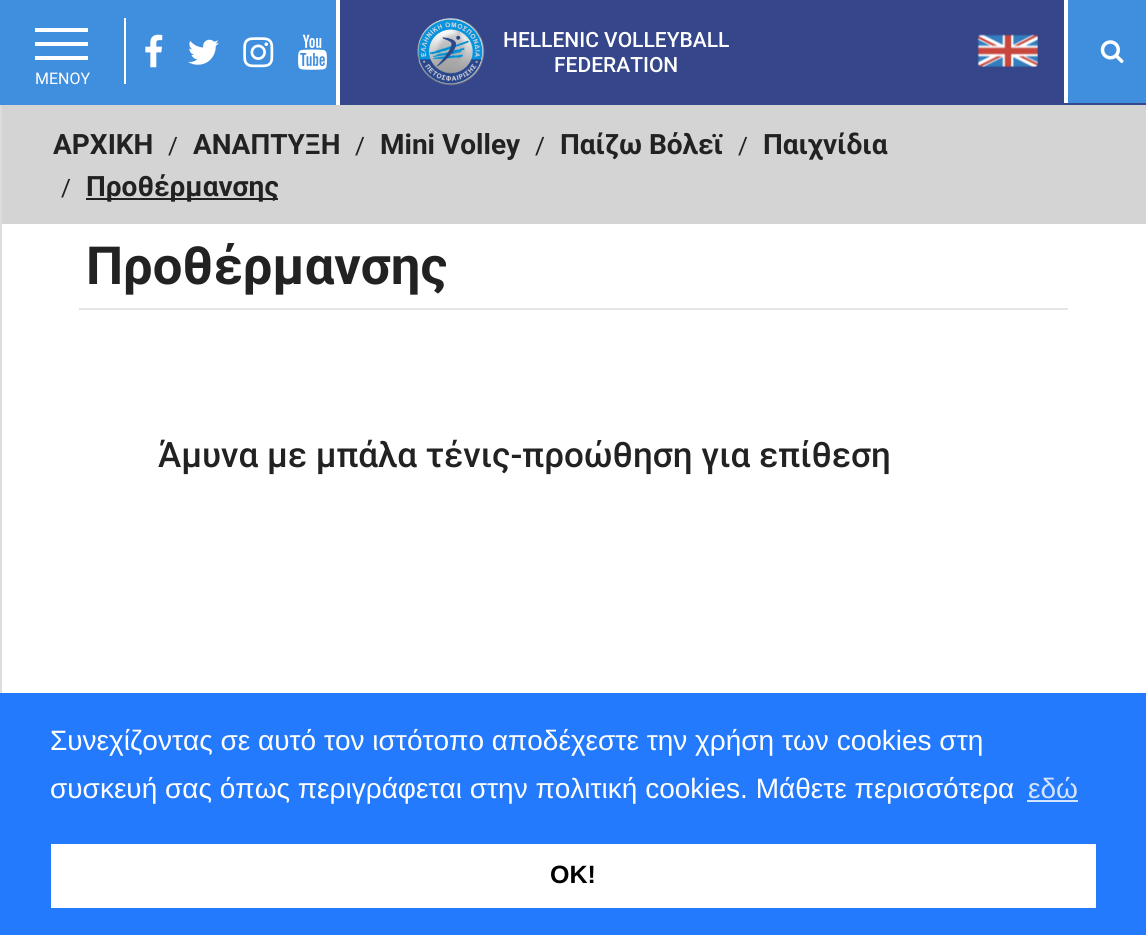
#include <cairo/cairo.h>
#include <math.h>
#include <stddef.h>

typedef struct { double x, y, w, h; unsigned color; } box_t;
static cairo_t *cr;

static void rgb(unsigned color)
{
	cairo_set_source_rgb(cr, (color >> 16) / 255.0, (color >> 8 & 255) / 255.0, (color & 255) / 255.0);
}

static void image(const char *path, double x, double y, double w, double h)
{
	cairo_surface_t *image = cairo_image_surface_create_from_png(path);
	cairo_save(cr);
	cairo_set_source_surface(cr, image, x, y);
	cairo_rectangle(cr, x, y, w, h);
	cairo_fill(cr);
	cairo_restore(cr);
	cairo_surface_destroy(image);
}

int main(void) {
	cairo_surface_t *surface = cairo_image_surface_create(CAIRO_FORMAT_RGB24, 1146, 935);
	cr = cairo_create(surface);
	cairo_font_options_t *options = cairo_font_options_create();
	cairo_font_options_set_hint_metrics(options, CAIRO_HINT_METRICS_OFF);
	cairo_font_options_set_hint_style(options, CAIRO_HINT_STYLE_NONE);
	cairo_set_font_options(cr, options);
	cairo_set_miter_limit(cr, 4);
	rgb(0xffffff);
	cairo_paint(cr);
	rgb(0x35468b);
	cairo_rectangle(cr, 340, 0, 806, 105);
	cairo_fill(cr);
	image("img/1.png", 417, 18, 68, 68);
	image("img/2.png", 977, 34, 61, 33);
	rgb(0x408fde);
	cairo_rectangle(cr, 1068, 0, 78, 103);
	cairo_fill(cr);
	rgb(0xffffff);
	cairo_rectangle(cr, 1064, 0, 4, 103);
	cairo_fill(cr);
	image("img/3.png", 1100, 40, 24, 23);
	rgb(0x408fde);
	cairo_rectangle(cr, 0, 0, 336, 105);
	cairo_fill(cr);
	image("img/4.png", 145, 34, 18, 34);
	image("img/5.png", 188, 39, 31, 26);
	image("img/6.png", 243, 37, 31, 31);
	image("img/7.png", 298, 34, 29, 36);
	{
		static const box_t items[] = {
			{124, 18, 2, 66, 0xffffff},
			{35, 28, 53, 4, 0xffffff},
			{35, 42, 53, 4, 0xffffff},
			{35, 56, 53, 4, 0xffffff},
			{0, 105, 2, 588, 0xdddddd},
			{2, 105, 1144, 119, 0xd4d4d4},
			{86, 198, 192, 2, 0x222222},
			{79, 308, 989, 2, 0xe5e5e5},
			{0, 693, 1146, 242, 0x237afc},
			{1027, 800, 51, 2, 0xd3e4fe},
			{51, 844, 1045, 64, 0xffffff},
		};
		for (size_t i = 0; i < sizeof items / sizeof *items; i++) {
			rgb(items[i].color);
			cairo_rectangle(cr, items[i].x, items[i].y, items[i].w, items[i].h);
			cairo_fill(cr);
		}
	}
	cairo_select_font_face(cr, "Roboto Medium", CAIRO_FONT_SLANT_NORMAL, CAIRO_FONT_WEIGHT_NORMAL);
	cairo_set_font_size(cr, 21);
	cairo_move_to(cr, 503, 47);
	cairo_show_text(cr, "HELLENIC VOLLEYBALL");
	cairo_move_to(cr, 554, 72);
	cairo_show_text(cr, "FEDERATION");
	cairo_select_font_face(cr, "Roboto", CAIRO_FONT_SLANT_NORMAL, CAIRO_FONT_WEIGHT_NORMAL);
	cairo_set_font_size(cr, 16);
	cairo_move_to(cr, 35, 84);
	cairo_show_text(cr, "ΜΕΝΟΥ");
	cairo_select_font_face(cr, "Roboto", CAIRO_FONT_SLANT_NORMAL, CAIRO_FONT_WEIGHT_BOLD);
	cairo_set_font_size(cr, 28);
	rgb(0x222222);
	cairo_move_to(cr, 53, 154);
	cairo_show_text(cr, "ΑΡΧΙΚΗ");
	cairo_select_font_face(cr, "Roboto", CAIRO_FONT_SLANT_NORMAL, CAIRO_FONT_WEIGHT_NORMAL);
	cairo_set_font_size(cr, 24);
	cairo_move_to(cr, 168, 154);
	cairo_show_text(cr, "/");
	cairo_select_font_face(cr, "Roboto", CAIRO_FONT_SLANT_NORMAL, CAIRO_FONT_WEIGHT_BOLD);
	cairo_set_font_size(cr, 28);
	cairo_move_to(cr, 193, 154);
	cairo_show_text(cr, "ΑΝΑΠΤΥΞΗ");
	cairo_select_font_face(cr, "Roboto", CAIRO_FONT_SLANT_NORMAL, CAIRO_FONT_WEIGHT_NORMAL);
	cairo_set_font_size(cr, 24);
	cairo_move_to(cr, 355, 154);
	cairo_show_text(cr, "/");
	cairo_select_font_face(cr, "Roboto", CAIRO_FONT_SLANT_NORMAL, CAIRO_FONT_WEIGHT_BOLD);
	cairo_set_font_size(cr, 28);
	cairo_move_to(cr, 380, 154);
	cairo_show_text(cr, "Mini Volley");
	cairo_select_font_face(cr, "Roboto", CAIRO_FONT_SLANT_NORMAL, CAIRO_FONT_WEIGHT_NORMAL);
	cairo_set_font_size(cr, 24);
	cairo_move_to(cr, 535, 154);
	cairo_show_text(cr, "/");
	cairo_select_font_face(cr, "Roboto", CAIRO_FONT_SLANT_NORMAL, CAIRO_FONT_WEIGHT_BOLD);
	cairo_set_font_size(cr, 28);
	cairo_move_to(cr, 560, 154);
	cairo_show_text(cr, "Παίζω Βόλεϊ");
	cairo_select_font_face(cr, "Roboto", CAIRO_FONT_SLANT_NORMAL, CAIRO_FONT_WEIGHT_NORMAL);
	cairo_set_font_size(cr, 24);
	cairo_move_to(cr, 738, 154);
	cairo_show_text(cr, "/");
	cairo_select_font_face(cr, "Roboto", CAIRO_FONT_SLANT_NORMAL, CAIRO_FONT_WEIGHT_BOLD);
	cairo_set_font_size(cr, 28);
	cairo_move_to(cr, 763, 154);
	cairo_show_text(cr, "Παιχνίδια");
	cairo_select_font_face(cr, "Roboto", CAIRO_FONT_SLANT_NORMAL, CAIRO_FONT_WEIGHT_NORMAL);
	cairo_set_font_size(cr, 24);
	cairo_move_to(cr, 61, 196);
	cairo_show_text(cr, "/");
	cairo_select_font_face(cr, "Roboto", CAIRO_FONT_SLANT_NORMAL, CAIRO_FONT_WEIGHT_BOLD);
	cairo_set_font_size(cr, 28);
	cairo_move_to(cr, 86, 196);
	cairo_show_text(cr, "Προθέρμανσης");
	cairo_set_font_size(cr, 52.5);
	cairo_move_to(cr, 86, 284);
	cairo_show_text(cr, "Προθέρμανσης");
	cairo_select_font_face(cr, "Roboto Medium", CAIRO_FONT_SLANT_NORMAL, CAIRO_FONT_WEIGHT_NORMAL);
	cairo_set_font_size(cr, 35);
	cairo_move_to(cr, 158, 467);
	cairo_show_text(cr, "Άμυνα με μπάλα τένις-προώθηση για επίθεση");
	cairo_select_font_face(cr, "Liberation Sans", CAIRO_FONT_SLANT_NORMAL, CAIRO_FONT_WEIGHT_NORMAL);
	cairo_set_font_size(cr, 28);
	rgb(0xffffff);
	cairo_move_to(cr, 50, 750);
	cairo_show_text(cr, "Συνεχίζοντας σε αυτό τον ιστότοπο αποδέχεστε την χρήση των cookies στη");
	cairo_move_to(cr, 50, 798);
	cairo_show_text(cr, "συσκευή σας όπως περιγράφεται στην πολιτική cookies. Μάθετε περισσότερα");
	rgb(0xd3e4fe);
	cairo_move_to(cr, 1028, 798);
	cairo_show_text(cr, "εδώ");
	cairo_select_font_face(cr, "Liberation Sans", CAIRO_FONT_SLANT_NORMAL, CAIRO_FONT_WEIGHT_BOLD);
	cairo_set_font_size(cr, 25);
	rgb(0x000000);
	cairo_move_to(cr, 550, 883);
	cairo_show_text(cr, "OK!");
	cairo_surface_write_to_png(surface, "page.png");
	cairo_font_options_destroy(options);
	cairo_destroy(cr);
	cairo_surface_destroy(surface);
	return 0;
}
